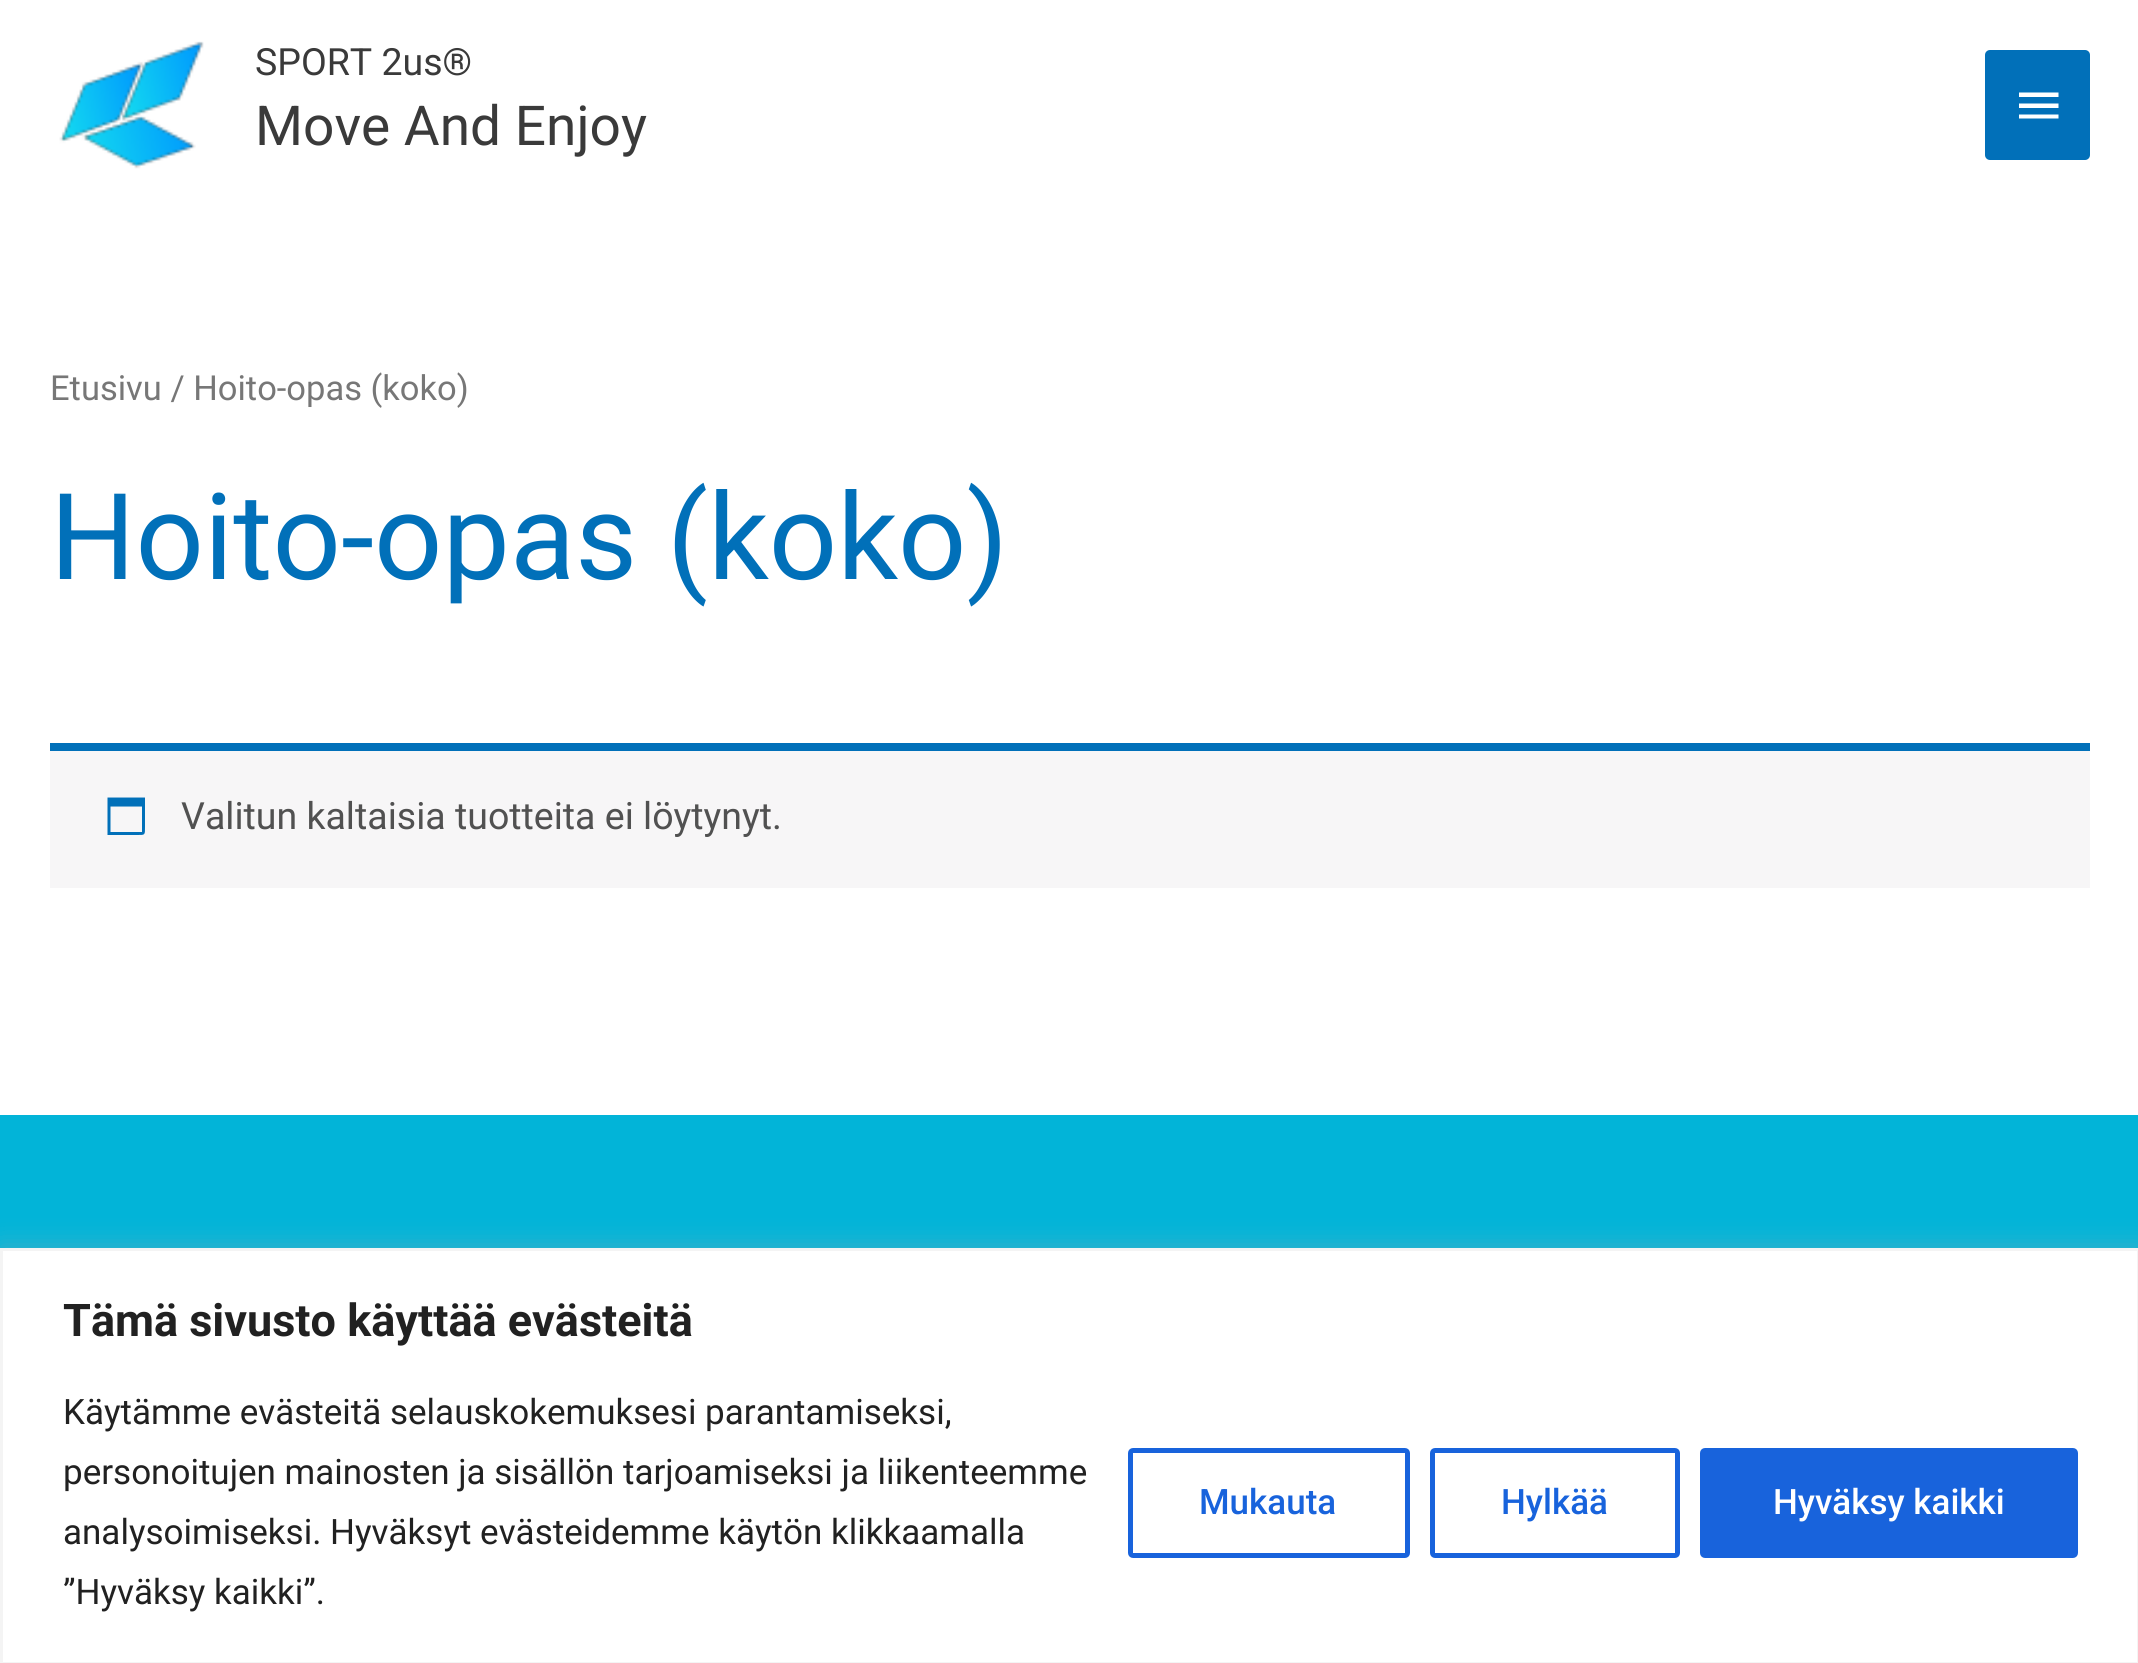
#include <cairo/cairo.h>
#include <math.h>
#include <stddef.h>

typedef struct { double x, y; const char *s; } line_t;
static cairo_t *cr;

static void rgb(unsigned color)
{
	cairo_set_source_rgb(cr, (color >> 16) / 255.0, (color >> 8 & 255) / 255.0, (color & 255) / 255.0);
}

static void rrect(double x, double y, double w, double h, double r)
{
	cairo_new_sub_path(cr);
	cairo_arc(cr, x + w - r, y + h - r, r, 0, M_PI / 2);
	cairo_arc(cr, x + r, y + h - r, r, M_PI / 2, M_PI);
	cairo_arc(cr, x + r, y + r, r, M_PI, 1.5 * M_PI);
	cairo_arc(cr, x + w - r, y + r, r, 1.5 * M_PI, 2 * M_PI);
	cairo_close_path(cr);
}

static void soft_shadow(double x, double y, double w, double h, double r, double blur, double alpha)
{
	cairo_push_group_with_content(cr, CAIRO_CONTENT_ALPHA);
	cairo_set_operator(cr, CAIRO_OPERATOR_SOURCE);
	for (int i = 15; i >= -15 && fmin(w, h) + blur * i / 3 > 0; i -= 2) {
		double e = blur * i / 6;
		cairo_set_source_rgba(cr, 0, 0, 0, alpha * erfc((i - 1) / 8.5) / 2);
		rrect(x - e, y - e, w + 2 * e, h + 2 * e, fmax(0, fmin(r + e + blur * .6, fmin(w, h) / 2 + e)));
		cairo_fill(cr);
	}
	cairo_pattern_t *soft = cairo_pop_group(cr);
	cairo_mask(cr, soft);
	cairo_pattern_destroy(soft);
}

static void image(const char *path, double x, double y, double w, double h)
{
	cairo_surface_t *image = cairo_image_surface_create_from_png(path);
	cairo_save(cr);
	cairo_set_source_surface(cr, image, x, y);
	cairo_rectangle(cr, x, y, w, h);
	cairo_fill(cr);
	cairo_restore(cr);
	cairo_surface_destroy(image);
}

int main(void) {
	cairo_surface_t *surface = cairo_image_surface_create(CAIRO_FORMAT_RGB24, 2138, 1663);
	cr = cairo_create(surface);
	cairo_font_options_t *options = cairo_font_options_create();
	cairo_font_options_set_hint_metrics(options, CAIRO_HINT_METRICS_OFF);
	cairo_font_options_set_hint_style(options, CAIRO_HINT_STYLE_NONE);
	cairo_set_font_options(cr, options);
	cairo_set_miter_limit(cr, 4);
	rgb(0xffffff);
	cairo_paint(cr);
	image("img/1.png", 59, 41, 145, 128);
	rgb(0x0170b9);
	rrect(1985, 50, 105, 110, 5);
	cairo_fill(cr);
	rgb(0xffffff);
	cairo_new_path(cr);
	cairo_move_to(cr, 2019, 92.5);
	cairo_line_to(cr, 2058.5, 92.5);
	cairo_line_to(cr, 2058.5, 97);
	cairo_line_to(cr, 2019, 97);
	cairo_close_path(cr);
	cairo_move_to(cr, 2019, 108);
	cairo_line_to(cr, 2019, 103.5);
	cairo_line_to(cr, 2058.5, 103.5);
	cairo_line_to(cr, 2058.5, 108);
	cairo_close_path(cr);
	cairo_move_to(cr, 2019, 118.5);
	cairo_line_to(cr, 2019, 114.5);
	cairo_line_to(cr, 2058.5, 114.5);
	cairo_line_to(cr, 2058.5, 118.5);
	cairo_close_path(cr);
	cairo_fill(cr);
	rgb(0xf7f6f7);
	cairo_rectangle(cr, 50, 751, 2040, 137);
	cairo_fill(cr);
	rgb(0x0170b9);
	cairo_rectangle(cr, 50, 743, 2040, 8);
	cairo_fill(cr);
	cairo_new_path(cr);
	cairo_move_to(cr, 142, 806.5);
	cairo_line_to(cr, 110.5, 806.5);
	cairo_line_to(cr, 110.5, 832);
	cairo_line_to(cr, 142, 832);
	cairo_close_path(cr);
	cairo_move_to(cr, 145, 797.5);
	cairo_line_to(cr, 145, 826);
	cairo_curve_to(cr, 145, 835.5, 145.5, 835, 136.5, 835);
	cairo_line_to(cr, 107.5, 835);
	cairo_line_to(cr, 107.5, 797.5);
	cairo_close_path(cr);
	cairo_fill(cr);
	rgb(0x02b4d8);
	cairo_rectangle(cr, 0, 1115, 2138, 133);
	cairo_fill(cr);
	rgb(0xacabab);
	soft_shadow(0, 1245, 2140, 418, 0, 12.5, 0.3);
	rgb(0xffffff);
	cairo_rectangle(cr, 1.5, 1249.5, 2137, 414);
	cairo_fill_preserve(cr);
	rgb(0xf4f4f4);
	cairo_set_line_width(cr, 3);
	cairo_stroke(cr);
	rrect(1130.5, 1450.5, 277, 105, 2.5);
	rgb(0x1863dc);
	cairo_set_line_width(cr, 5);
	cairo_stroke(cr);
	rrect(1432.5, 1450.5, 245, 105, 2.5);
	cairo_stroke(cr);
	rrect(1702.5, 1450.5, 373, 105, 2.5);
	cairo_fill_preserve(cr);
	cairo_stroke(cr);
	cairo_select_font_face(cr, "Roboto", CAIRO_FONT_SLANT_NORMAL, CAIRO_FONT_WEIGHT_NORMAL);
	cairo_set_font_size(cr, 37.5);
	rgb(0x3a3a3a);
	cairo_move_to(cr, 255, 75);
	cairo_show_text(cr, "SPORT 2us®");
	cairo_set_font_size(cr, 55);
	cairo_move_to(cr, 255, 145);
	cairo_show_text(cr, "Move And Enjoy");
	cairo_set_font_size(cr, 34.5);
	rgb(0x777777);
	cairo_move_to(cr, 50, 400);
	cairo_show_text(cr, "Etusivu / Hoito-opas (koko)");
	cairo_set_font_size(cr, 120);
	rgb(0x0170b9);
	cairo_move_to(cr, 50, 579);
	cairo_show_text(cr, "Hoito-opas (koko)");
	cairo_set_font_size(cr, 37.5);
	rgb(0x515151);
	cairo_move_to(cr, 181, 829);
	cairo_show_text(cr, "Valitun kaltaisia tuotteita ei löytynyt.");
	cairo_select_font_face(cr, "Roboto", CAIRO_FONT_SLANT_NORMAL, CAIRO_FONT_WEIGHT_BOLD);
	cairo_set_font_size(cr, 45);
	rgb(0x212121);
	cairo_move_to(cr, 63, 1336);
	cairo_show_text(cr, "Tämä sivusto käyttää evästeitä");
	cairo_select_font_face(cr, "Roboto", CAIRO_FONT_SLANT_NORMAL, CAIRO_FONT_WEIGHT_NORMAL);
	cairo_set_font_size(cr, 35);
	{
		static const line_t items[] = {
			{63, 1424, "Käytämme evästeitä selauskokemuksesi parantamiseksi,"},
			{63, 1484, "personoitujen mainosten ja sisällön tarjoamiseksi ja liikenteemme"},
			{63, 1544, "analysoimiseksi. Hyväksyt evästeidemme käytön klikkaamalla"},
			{63, 1604, "”Hyväksy kaikki”."},
		};
		for (size_t i = 0; i < sizeof items / sizeof *items; i++) {
			cairo_move_to(cr, items[i].x, items[i].y);
			cairo_show_text(cr, items[i].s);
		}
	}
	cairo_select_font_face(cr, "Roboto Medium", CAIRO_FONT_SLANT_NORMAL, CAIRO_FONT_WEIGHT_NORMAL);
	rgb(0x1863dc);
	cairo_move_to(cr, 1199, 1514);
	cairo_show_text(cr, "Mukauta");
	cairo_move_to(cr, 1501, 1514);
	cairo_show_text(cr, "Hylkää");
	rgb(0xffffff);
	cairo_move_to(cr, 1773, 1514);
	cairo_show_text(cr, "Hyväksy kaikki");
	cairo_surface_write_to_png(surface, "page.png");
	cairo_font_options_destroy(options);
	cairo_destroy(cr);
	cairo_surface_destroy(surface);
	return 0;
}
